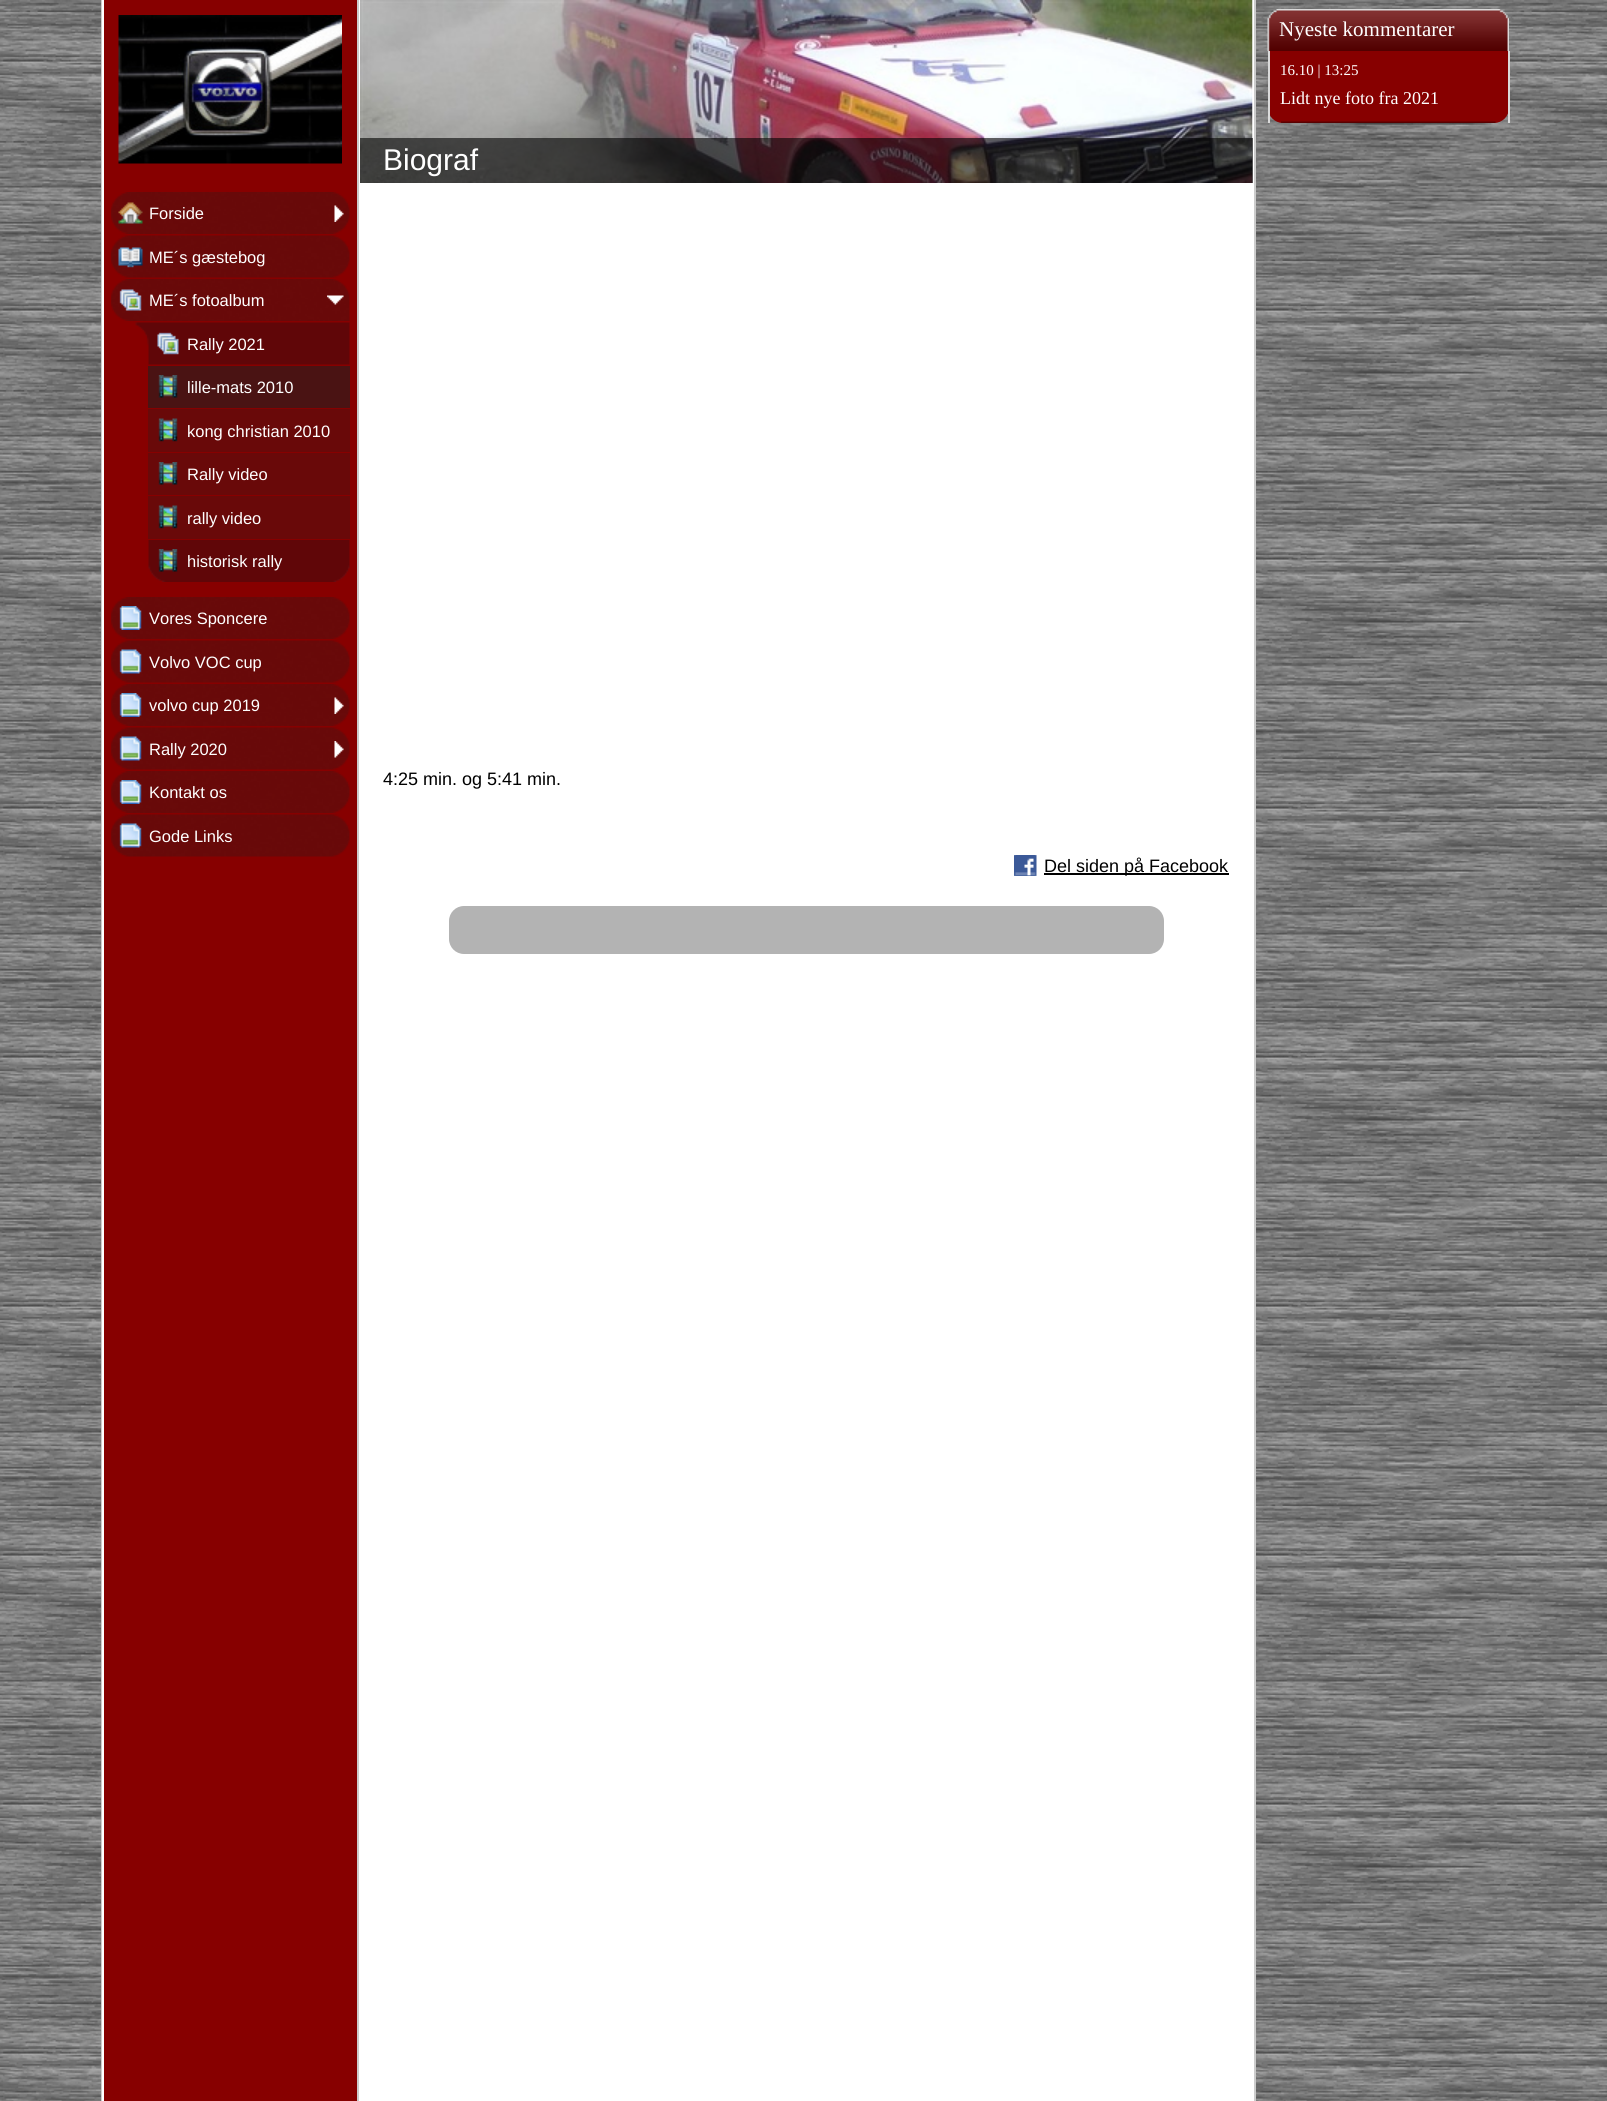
#include <cairo/cairo.h>
#include <math.h>
#include <stddef.h>

typedef struct { double x, y; const char *s; } line_t;
typedef struct { double x, y, w, h; unsigned color; } box_t;
static cairo_t *cr;

static void rgb(unsigned color)
{
	cairo_set_source_rgb(cr, (color >> 16) / 255.0, (color >> 8 & 255) / 255.0, (color & 255) / 255.0);
}

static void rrect(double x, double y, double w, double h, double r)
{
	cairo_new_sub_path(cr);
	cairo_arc(cr, x + w - r, y + h - r, r, 0, M_PI / 2);
	cairo_arc(cr, x + r, y + h - r, r, M_PI / 2, M_PI);
	cairo_arc(cr, x + r, y + r, r, M_PI, 1.5 * M_PI);
	cairo_arc(cr, x + w - r, y + r, r, 1.5 * M_PI, 2 * M_PI);
	cairo_close_path(cr);
}

static void image(const char *path, double x, double y, double w, double h)
{
	cairo_surface_t *image = cairo_image_surface_create_from_png(path);
	cairo_save(cr);
	cairo_set_source_surface(cr, image, x, y);
	cairo_rectangle(cr, x, y, w, h);
	cairo_fill(cr);
	cairo_restore(cr);
	cairo_surface_destroy(image);
}

int main(void) {
	cairo_surface_t *surface = cairo_image_surface_create(CAIRO_FORMAT_RGB24, 1607, 2101);
	cr = cairo_create(surface);
	cairo_font_options_t *options = cairo_font_options_create();
	cairo_font_options_set_hint_metrics(options, CAIRO_HINT_METRICS_OFF);
	cairo_font_options_set_hint_style(options, CAIRO_HINT_STYLE_NONE);
	cairo_set_font_options(cr, options);
	cairo_set_miter_limit(cr, 4);
	rgb(0xffffff);
	cairo_paint(cr);
	image("img/1.png", 0, 0, 1607, 2101);
	rgb(0x870000);
	rrect(1268, 9, 241, 114, 15);
	cairo_fill(cr);
	image("img/2.png", 1267, 9, 242, 42);
	rgb(0xdadada);
	cairo_rectangle(cr, 1508, 51, 2, 72);
	cairo_fill(cr);
	cairo_rectangle(cr, 1268, 51, 2, 72);
	cairo_fill(cr);
	image("img/3.png", 1281, 121, 215, 2);
	{
		static const box_t items[] = {
			{359, 0, 895, 2101, 0xffffff},
			{101, 0, 1, 2101, 0xcccccc},
			{102, 0, 2, 2101, 0xffffff},
			{104, 0, 253, 2101, 0x870000},
		};
		for (size_t i = 0; i < sizeof items / sizeof *items; i++) {
			rgb(items[i].color);
			cairo_rectangle(cr, items[i].x, items[i].y, items[i].w, items[i].h);
			cairo_fill(cr);
		}
	}
	image("img/4.png", 118, 15, 224, 149);
	image("img/5.png", 111, 192, 239, 42);
	image("img/6.png", 118, 202, 25, 22);
	image("img/7.png", 334, 205, 10, 17);
	image("img/8.png", 111, 235, 239, 43);
	image("img/9.png", 118, 247, 25, 21);
	image("img/10.png", 111, 279, 239, 42);
	image("img/11.png", 119, 289, 23, 22);
	image("img/12.png", 327, 295, 17, 10);
	image("img/13.png", 135, 322, 215, 43);
	image("img/14.png", 157, 332, 22, 23);
	rgb(0x4a1313);
	cairo_rectangle(cr, 148, 366, 202, 42);
	cairo_fill(cr);
	image("img/15.png", 158, 375, 20, 23);
	rgb(0x690909);
	cairo_rectangle(cr, 148, 409, 202, 43);
	cairo_fill(cr);
	image("img/16.png", 158, 418, 20, 24);
	cairo_rectangle(cr, 148, 453, 202, 42);
	cairo_fill(cr);
	image("img/17.png", 158, 462, 20, 23);
	cairo_rectangle(cr, 148, 496, 202, 43);
	cairo_fill(cr);
	image("img/16.png", 158, 505, 20, 24);
	image("img/18.png", 148, 540, 202, 42);
	image("img/19.png", 158, 549, 20, 23);
	image("img/5.png", 111, 597, 239, 42);
	image("img/20.png", 119, 606, 23, 24);
	image("img/8.png", 111, 640, 239, 43);
	image("img/21.png", 119, 649, 23, 25);
	image("img/5.png", 111, 684, 239, 42);
	image("img/20.png", 119, 693, 23, 24);
	image("img/7.png", 334, 697, 10, 17);
	image("img/8.png", 111, 727, 239, 43);
	image("img/21.png", 119, 736, 23, 25);
	image("img/22.png", 334, 741, 10, 17);
	image("img/5.png", 111, 771, 239, 42);
	image("img/20.png", 119, 780, 23, 24);
	image("img/8.png", 111, 814, 239, 43);
	image("img/21.png", 119, 823, 23, 25);
	rgb(0xcccccc);
	cairo_rectangle(cr, 357, 0, 2, 2101);
	cairo_fill(cr);
	image("img/23.png", 360, 0, 893, 183);
	cairo_set_source_rgba(cr, 0, 0, 0, 0.6);
	cairo_rectangle(cr, 360, 138, 893, 45);
	cairo_fill(cr);
	image("img/24.png", 1014, 855, 23, 21);
	rgb(0x000000);
	cairo_rectangle(cr, 1044, 873, 185, 2);
	cairo_fill(cr);
	rgb(0xb3b3b3);
	rrect(449, 906, 715, 48, 15);
	cairo_fill(cr);
	rgb(0xcccccc);
	cairo_rectangle(cr, 1254, 0, 2, 2101);
	cairo_fill(cr);
	cairo_select_font_face(cr, "Liberation Serif", CAIRO_FONT_SLANT_NORMAL, CAIRO_FONT_WEIGHT_NORMAL);
	cairo_set_font_size(cr, 21);
	rgb(0xffffff);
	cairo_move_to(cr, 1279, 36);
	cairo_show_text(cr, "Nyeste kommentarer");
	cairo_set_font_size(cr, 15);
	cairo_move_to(cr, 1280, 75);
	cairo_show_text(cr, "16.10 | 13:25");
	cairo_set_font_size(cr, 18);
	cairo_move_to(cr, 1280, 104);
	cairo_show_text(cr, "Lidt nye foto fra 2021");
	cairo_select_font_face(cr, "Liberation Sans", CAIRO_FONT_SLANT_NORMAL, CAIRO_FONT_WEIGHT_NORMAL);
	cairo_set_font_size(cr, 16.5);
	{
		static const line_t items[] = {
			{149, 219, "Forside"},
			{149, 263, "ME´s gæstebog"},
			{149, 306, "ME´s fotoalbum"},
			{187, 350, "Rally 2021"},
		};
		for (size_t i = 0; i < sizeof items / sizeof *items; i++) {
			cairo_move_to(cr, items[i].x, items[i].y);
			cairo_show_text(cr, items[i].s);
		}
	}
	cairo_save(cr);
	cairo_rectangle(cr, 188, 377, 148, 21);
	cairo_clip(cr);
	cairo_move_to(cr, 187, 393);
	cairo_show_text(cr, "lille-mats 2010");
	cairo_restore(cr);
	cairo_save(cr);
	cairo_rectangle(cr, 188, 420, 148, 21);
	cairo_clip(cr);
	cairo_move_to(cr, 187, 437);
	cairo_show_text(cr, "kong christian 2010");
	cairo_restore(cr);
	cairo_move_to(cr, 187, 480);
	cairo_show_text(cr, "Rally video");
	cairo_save(cr);
	cairo_rectangle(cr, 188, 507, 148, 21);
	cairo_clip(cr);
	cairo_move_to(cr, 187, 524);
	cairo_show_text(cr, "rally video");
	cairo_restore(cr);
	cairo_save(cr);
	cairo_rectangle(cr, 188, 551, 148, 21);
	cairo_clip(cr);
	cairo_move_to(cr, 187, 567);
	cairo_show_text(cr, "historisk rally");
	cairo_restore(cr);
	{
		static const line_t items[] = {
			{149, 624, "Vores Sponcere"},
			{149, 668, "Volvo VOC cup"},
			{149, 711, "volvo cup 2019"},
			{149, 755, "Rally 2020"},
			{149, 798, "Kontakt os"},
			{149, 842, "Gode Links"},
		};
		for (size_t i = 0; i < sizeof items / sizeof *items; i++) {
			cairo_move_to(cr, items[i].x, items[i].y);
			cairo_show_text(cr, items[i].s);
		}
	}
	cairo_set_font_size(cr, 30);
	cairo_move_to(cr, 383, 170);
	cairo_show_text(cr, "Biograf");
	cairo_set_font_size(cr, 18);
	rgb(0x000000);
	cairo_move_to(cr, 383, 785);
	cairo_show_text(cr, "4:25 min. og 5:41 min.");
	cairo_move_to(cr, 1044, 872);
	cairo_show_text(cr, "Del siden på Facebook");
	cairo_surface_write_to_png(surface, "page.png");
	cairo_font_options_destroy(options);
	cairo_destroy(cr);
	cairo_surface_destroy(surface);
	return 0;
}
